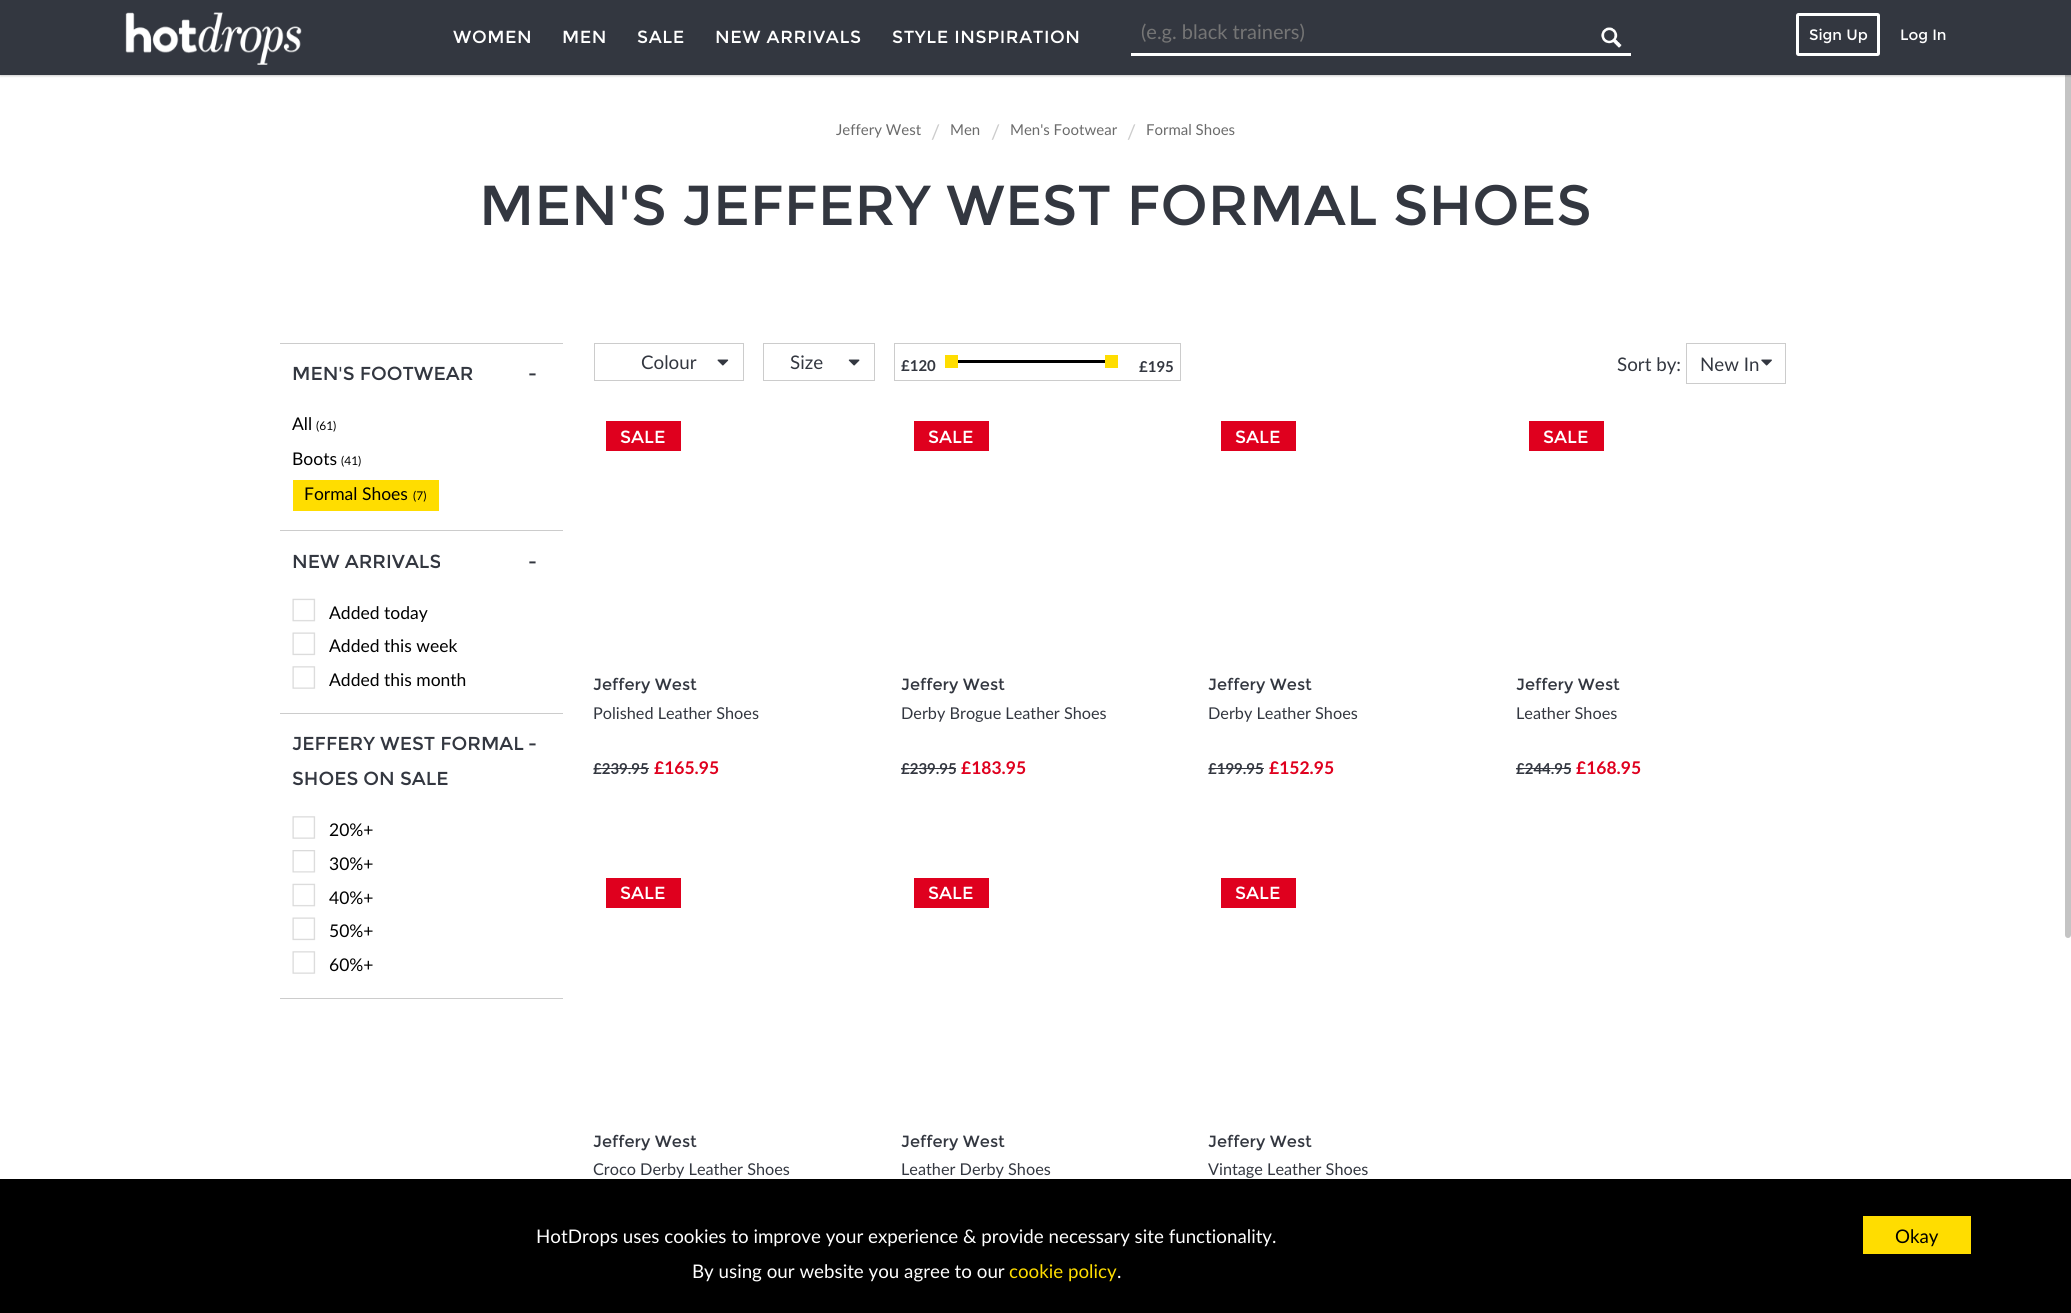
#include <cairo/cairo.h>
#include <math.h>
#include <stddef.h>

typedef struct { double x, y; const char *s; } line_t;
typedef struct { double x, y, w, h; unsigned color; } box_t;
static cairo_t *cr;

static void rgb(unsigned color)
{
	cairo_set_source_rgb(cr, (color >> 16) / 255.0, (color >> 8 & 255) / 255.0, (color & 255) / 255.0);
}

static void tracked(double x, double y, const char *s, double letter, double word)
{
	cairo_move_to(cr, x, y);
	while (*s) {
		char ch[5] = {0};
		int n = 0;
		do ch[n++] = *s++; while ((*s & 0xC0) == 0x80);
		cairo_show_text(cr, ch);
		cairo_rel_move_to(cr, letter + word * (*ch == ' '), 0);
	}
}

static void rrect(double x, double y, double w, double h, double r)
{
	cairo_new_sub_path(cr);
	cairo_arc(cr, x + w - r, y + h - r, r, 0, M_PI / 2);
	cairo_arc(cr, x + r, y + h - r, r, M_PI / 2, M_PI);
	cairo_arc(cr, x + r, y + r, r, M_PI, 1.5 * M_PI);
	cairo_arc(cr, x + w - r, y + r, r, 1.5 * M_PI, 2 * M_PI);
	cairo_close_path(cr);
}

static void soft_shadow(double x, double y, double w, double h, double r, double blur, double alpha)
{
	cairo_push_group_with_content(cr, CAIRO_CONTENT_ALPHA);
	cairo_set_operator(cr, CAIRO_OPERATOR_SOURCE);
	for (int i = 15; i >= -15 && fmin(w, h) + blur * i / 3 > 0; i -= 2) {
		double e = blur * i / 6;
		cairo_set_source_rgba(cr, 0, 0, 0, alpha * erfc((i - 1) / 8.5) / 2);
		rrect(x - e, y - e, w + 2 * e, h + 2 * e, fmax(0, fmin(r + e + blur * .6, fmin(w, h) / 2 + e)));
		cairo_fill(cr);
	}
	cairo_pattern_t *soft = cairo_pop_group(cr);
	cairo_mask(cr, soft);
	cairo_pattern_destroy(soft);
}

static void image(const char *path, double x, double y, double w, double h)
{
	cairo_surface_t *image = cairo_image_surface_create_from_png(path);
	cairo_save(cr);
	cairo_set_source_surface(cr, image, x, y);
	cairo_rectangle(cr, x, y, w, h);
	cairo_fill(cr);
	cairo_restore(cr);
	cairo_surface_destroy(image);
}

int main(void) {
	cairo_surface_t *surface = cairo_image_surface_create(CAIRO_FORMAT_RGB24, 2071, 1313);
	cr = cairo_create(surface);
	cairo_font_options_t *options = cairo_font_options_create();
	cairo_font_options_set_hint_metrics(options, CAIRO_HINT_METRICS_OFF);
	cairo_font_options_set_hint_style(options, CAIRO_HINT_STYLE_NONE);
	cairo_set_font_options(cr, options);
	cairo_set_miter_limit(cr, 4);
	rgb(0xffffff);
	cairo_paint(cr);
	rgb(0xc4c4c4);
	rrect(2065, 0, 6, 938, 3);
	cairo_fill(cr);
	rgb(0x000000);
	soft_shadow(0, 1, 2071, 75, 0, 1, 0.2);
	rgb(0x333740);
	cairo_rectangle(cr, 0, 0, 2071, 75);
	cairo_fill(cr);
	image("img/1.png", 125, 12, 177, 53);
	rgb(0xffffff);
	cairo_rectangle(cr, 1131, 53, 500, 3);
	cairo_fill(cr);
	image("img/2.png", 1601, 27, 21, 21);
	rrect(1797.5, 14.5, 81, 40, 1);
	cairo_set_line_width(cr, 3);
	cairo_stroke(cr);
	{
		static const box_t items[] = {
			{280, 343, 283, 1, 0xcccccc},
			{280, 530, 283, 1, 0xcccccc},
			{293, 480, 146, 31, 0xffdd00},
			{280, 713, 283, 1, 0xcccccc},
		};
		for (size_t i = 0; i < sizeof items / sizeof *items; i++) {
			rgb(items[i].color);
			cairo_rectangle(cr, items[i].x, items[i].y, items[i].w, items[i].h);
			cairo_fill(cr);
		}
	}
	image("img/3.png", 292, 598, 24, 24);
	image("img/4.png", 292, 632, 24, 24);
	image("img/5.png", 292, 666, 24, 23);
	cairo_rectangle(cr, 280, 998, 283, 1);
	cairo_fill(cr);
	image("img/5.png", 292, 816, 24, 23);
	image("img/6.png", 292, 850, 24, 23);
	image("img/3.png", 292, 883, 24, 24);
	image("img/4.png", 292, 917, 24, 24);
	image("img/5.png", 292, 951, 24, 23);
	cairo_rectangle(cr, 594.5, 343.5, 149, 37);
	cairo_set_line_width(cr, 1);
	cairo_stroke(cr);
	image("img/7.png", 717, 359, 12, 7);
	cairo_rectangle(cr, 763.5, 343.5, 111, 37);
	cairo_stroke(cr);
	image("img/8.png", 848, 359, 12, 7);
	cairo_rectangle(cr, 894.5, 343.5, 286, 37);
	cairo_stroke(cr);
	{
		static const box_t items[] = {
			{945, 355, 13, 13, 0xffdd00},
			{958, 360, 147, 3, 0x000000},
			{1105, 355, 13, 13, 0xffdd00},
		};
		for (size_t i = 0; i < sizeof items / sizeof *items; i++) {
			rgb(items[i].color);
			cairo_rectangle(cr, items[i].x, items[i].y, items[i].w, items[i].h);
			cairo_fill(cr);
		}
	}
	cairo_rectangle(cr, 1686.5, 343.5, 99, 40);
	rgb(0xcccccc);
	cairo_stroke(cr);
	image("img/9.png", 1761, 359, 11, 7);
	{
		static const box_t items[] = {
			{606, 421, 75, 30, 0xdf001e},
			{594, 768, 55, 1, 0x333740},
			{914, 421, 75, 30, 0xdf001e},
			{901, 768, 55, 1, 0x333740},
			{1221, 421, 75, 30, 0xdf001e},
			{1209, 768, 55, 1, 0x333740},
			{1529, 421, 75, 30, 0xdf001e},
			{1516, 768, 55, 1, 0x333740},
			{606, 878, 75, 30, 0xdf001e},
			{914, 878, 75, 30, 0xdf001e},
			{1221, 878, 75, 30, 0xdf001e},
			{0, 1179, 2071, 134, 0x000000},
			{1863, 1216, 108, 38, 0xffdd00},
		};
		for (size_t i = 0; i < sizeof items / sizeof *items; i++) {
			rgb(items[i].color);
			cairo_rectangle(cr, items[i].x, items[i].y, items[i].w, items[i].h);
			cairo_fill(cr);
		}
	}
	cairo_select_font_face(cr, "Montserrat", CAIRO_FONT_SLANT_NORMAL, CAIRO_FONT_WEIGHT_NORMAL);
	cairo_set_font_size(cr, 17.5);
	rgb(0xffffff);
	{
		static const line_t items[] = {
			{453, 43, "WOMEN"},
			{562, 43, "MEN"},
			{637, 43, "SALE"},
			{715, 43, "NEW ARRIVALS"},
			{892, 43, "STYLE INSPIRATION"},
		};
		for (size_t i = 0; i < sizeof items / sizeof *items; i++) {
			tracked(items[i].x, items[i].y, items[i].s, 0.6, 0);
		}
	}
	cairo_select_font_face(cr, "Lato", CAIRO_FONT_SLANT_NORMAL, CAIRO_FONT_WEIGHT_NORMAL);
	cairo_set_font_size(cr, 20);
	rgb(0x757575);
	cairo_move_to(cr, 1141, 39);
	cairo_show_text(cr, "(e.g. black trainers)");
	cairo_select_font_face(cr, "Montserrat", CAIRO_FONT_SLANT_NORMAL, CAIRO_FONT_WEIGHT_NORMAL);
	cairo_set_font_size(cr, 15);
	rgb(0xffffff);
	cairo_move_to(cr, 1809, 40);
	cairo_show_text(cr, "Sign Up");
	cairo_move_to(cr, 1900, 40);
	cairo_show_text(cr, "Log In");
	cairo_select_font_face(cr, "Lato", CAIRO_FONT_SLANT_NORMAL, CAIRO_FONT_WEIGHT_NORMAL);
	rgb(0x6b6b6b);
	cairo_move_to(cr, 836, 135);
	cairo_show_text(cr, "Jeffery West");
	cairo_set_font_size(cr, 20);
	rgb(0xcccccc);
	cairo_move_to(cr, 931, 139);
	cairo_show_text(cr, "/");
	cairo_set_font_size(cr, 15);
	rgb(0x6b6b6b);
	cairo_move_to(cr, 950, 135);
	cairo_show_text(cr, "Men");
	cairo_set_font_size(cr, 20);
	rgb(0xcccccc);
	cairo_move_to(cr, 991, 139);
	cairo_show_text(cr, "/");
	cairo_set_font_size(cr, 15);
	rgb(0x6b6b6b);
	cairo_move_to(cr, 1010, 135);
	cairo_show_text(cr, "Men's Footwear");
	cairo_set_font_size(cr, 20);
	rgb(0xcccccc);
	cairo_move_to(cr, 1127, 139);
	cairo_show_text(cr, "/");
	cairo_set_font_size(cr, 15);
	rgb(0x6b6b6b);
	cairo_move_to(cr, 1146, 135);
	cairo_show_text(cr, "Formal Shoes");
	cairo_select_font_face(cr, "Montserrat", CAIRO_FONT_SLANT_NORMAL, CAIRO_FONT_WEIGHT_NORMAL);
	cairo_set_font_size(cr, 56.25);
	rgb(0x333740);
	cairo_move_to(cr, 479, 225);
	cairo_show_text(cr, "MEN'S JEFFERY WEST FORMAL SHOES");
	cairo_set_font_size(cr, 18.75);
	cairo_move_to(cr, 292, 380);
	cairo_show_text(cr, "MEN'S FOOTWEAR");
	cairo_move_to(cr, 528, 380);
	cairo_show_text(cr, "-");
	cairo_select_font_face(cr, "Lato", CAIRO_FONT_SLANT_NORMAL, CAIRO_FONT_WEIGHT_NORMAL);
	cairo_set_font_size(cr, 17.5);
	rgb(0x000000);
	cairo_move_to(cr, 292, 430);
	cairo_show_text(cr, "All");
	cairo_set_font_size(cr, 12);
	cairo_move_to(cr, 316, 430);
	cairo_show_text(cr, "(61)");
	cairo_set_font_size(cr, 17.5);
	cairo_move_to(cr, 292, 465);
	cairo_show_text(cr, "Boots");
	cairo_set_font_size(cr, 12);
	cairo_move_to(cr, 341, 465);
	cairo_show_text(cr, "(41)");
	cairo_set_font_size(cr, 17.5);
	cairo_move_to(cr, 304, 500);
	cairo_show_text(cr, "Formal Shoes");
	cairo_set_font_size(cr, 12);
	cairo_move_to(cr, 413, 500);
	cairo_show_text(cr, "(7)");
	cairo_select_font_face(cr, "Montserrat", CAIRO_FONT_SLANT_NORMAL, CAIRO_FONT_WEIGHT_NORMAL);
	cairo_set_font_size(cr, 18.75);
	rgb(0x333740);
	cairo_move_to(cr, 292, 568);
	cairo_show_text(cr, "NEW ARRIVALS");
	cairo_move_to(cr, 528, 568);
	cairo_show_text(cr, "-");
	cairo_select_font_face(cr, "Lato", CAIRO_FONT_SLANT_NORMAL, CAIRO_FONT_WEIGHT_NORMAL);
	cairo_set_font_size(cr, 17.5);
	rgb(0x000000);
	{
		static const line_t items[] = {
			{329, 619, "Added today"},
			{329, 652, "Added this week"},
			{329, 686, "Added this month"},
		};
		for (size_t i = 0; i < sizeof items / sizeof *items; i++) {
			cairo_move_to(cr, items[i].x, items[i].y);
			cairo_show_text(cr, items[i].s);
		}
	}
	cairo_select_font_face(cr, "Montserrat", CAIRO_FONT_SLANT_NORMAL, CAIRO_FONT_WEIGHT_NORMAL);
	cairo_set_font_size(cr, 18.75);
	rgb(0x333740);
	{
		static const line_t items[] = {
			{292, 750, "JEFFERY WEST FORMAL"},
			{528, 750, "-"},
			{292, 785, "SHOES ON SALE"},
		};
		for (size_t i = 0; i < sizeof items / sizeof *items; i++) {
			cairo_move_to(cr, items[i].x, items[i].y);
			cairo_show_text(cr, items[i].s);
		}
	}
	cairo_select_font_face(cr, "Lato", CAIRO_FONT_SLANT_NORMAL, CAIRO_FONT_WEIGHT_NORMAL);
	cairo_set_font_size(cr, 17.5);
	rgb(0x000000);
	{
		static const line_t items[] = {
			{329, 836, "20%+"},
			{329, 870, "30%+"},
			{329, 904, "40%+"},
			{329, 937, "50%+"},
			{329, 971, "60%+"},
		};
		for (size_t i = 0; i < sizeof items / sizeof *items; i++) {
			cairo_move_to(cr, items[i].x, items[i].y);
			cairo_show_text(cr, items[i].s);
		}
	}
	cairo_set_font_size(cr, 18.75);
	rgb(0x333740);
	cairo_move_to(cr, 641, 369);
	cairo_show_text(cr, "Colour");
	cairo_move_to(cr, 790, 369);
	cairo_show_text(cr, "Size");
	cairo_select_font_face(cr, "Lato", CAIRO_FONT_SLANT_NORMAL, CAIRO_FONT_WEIGHT_BOLD);
	cairo_set_font_size(cr, 15);
	cairo_move_to(cr, 901, 371);
	cairo_show_text(cr, "£120");
	cairo_move_to(cr, 1139, 372);
	cairo_show_text(cr, "£195");
	cairo_select_font_face(cr, "Lato", CAIRO_FONT_SLANT_NORMAL, CAIRO_FONT_WEIGHT_NORMAL);
	cairo_set_font_size(cr, 18.75);
	cairo_move_to(cr, 1617, 371);
	cairo_show_text(cr, "Sort by:");
	cairo_move_to(cr, 1700, 371);
	cairo_show_text(cr, "New In");
	cairo_select_font_face(cr, "Montserrat", CAIRO_FONT_SLANT_NORMAL, CAIRO_FONT_WEIGHT_NORMAL);
	cairo_set_font_size(cr, 17.5);
	rgb(0xffffff);
	cairo_move_to(cr, 620, 443);
	cairo_show_text(cr, "SALE");
	cairo_set_font_size(cr, 16.25);
	rgb(0x333740);
	cairo_move_to(cr, 593, 690);
	cairo_show_text(cr, "Jeffery West");
	cairo_select_font_face(cr, "Lato", CAIRO_FONT_SLANT_NORMAL, CAIRO_FONT_WEIGHT_NORMAL);
	cairo_move_to(cr, 593, 719);
	cairo_show_text(cr, "Polished Leather Shoes");
	cairo_select_font_face(cr, "Lato", CAIRO_FONT_SLANT_NORMAL, CAIRO_FONT_WEIGHT_BOLD);
	cairo_set_font_size(cr, 15);
	cairo_move_to(cr, 593, 774);
	cairo_show_text(cr, "£239.95");
	cairo_set_font_size(cr, 17.5);
	rgb(0xdf001e);
	cairo_move_to(cr, 654, 774);
	cairo_show_text(cr, "£165.95");
	cairo_select_font_face(cr, "Montserrat", CAIRO_FONT_SLANT_NORMAL, CAIRO_FONT_WEIGHT_NORMAL);
	rgb(0xffffff);
	cairo_move_to(cr, 928, 443);
	cairo_show_text(cr, "SALE");
	cairo_set_font_size(cr, 16.25);
	rgb(0x333740);
	cairo_move_to(cr, 901, 690);
	cairo_show_text(cr, "Jeffery West");
	cairo_select_font_face(cr, "Lato", CAIRO_FONT_SLANT_NORMAL, CAIRO_FONT_WEIGHT_NORMAL);
	cairo_move_to(cr, 901, 719);
	cairo_show_text(cr, "Derby Brogue Leather Shoes");
	cairo_select_font_face(cr, "Lato", CAIRO_FONT_SLANT_NORMAL, CAIRO_FONT_WEIGHT_BOLD);
	cairo_set_font_size(cr, 15);
	cairo_move_to(cr, 901, 774);
	cairo_show_text(cr, "£239.95");
	cairo_set_font_size(cr, 17.5);
	rgb(0xdf001e);
	cairo_move_to(cr, 961, 774);
	cairo_show_text(cr, "£183.95");
	cairo_select_font_face(cr, "Montserrat", CAIRO_FONT_SLANT_NORMAL, CAIRO_FONT_WEIGHT_NORMAL);
	rgb(0xffffff);
	cairo_move_to(cr, 1235, 443);
	cairo_show_text(cr, "SALE");
	cairo_set_font_size(cr, 16.25);
	rgb(0x333740);
	cairo_move_to(cr, 1208, 690);
	cairo_show_text(cr, "Jeffery West");
	cairo_select_font_face(cr, "Lato", CAIRO_FONT_SLANT_NORMAL, CAIRO_FONT_WEIGHT_NORMAL);
	cairo_move_to(cr, 1208, 719);
	cairo_show_text(cr, "Derby Leather Shoes");
	cairo_select_font_face(cr, "Lato", CAIRO_FONT_SLANT_NORMAL, CAIRO_FONT_WEIGHT_BOLD);
	cairo_set_font_size(cr, 15);
	cairo_move_to(cr, 1208, 774);
	cairo_show_text(cr, "£199.95");
	cairo_set_font_size(cr, 17.5);
	rgb(0xdf001e);
	cairo_move_to(cr, 1269, 774);
	cairo_show_text(cr, "£152.95");
	cairo_select_font_face(cr, "Montserrat", CAIRO_FONT_SLANT_NORMAL, CAIRO_FONT_WEIGHT_NORMAL);
	rgb(0xffffff);
	cairo_move_to(cr, 1543, 443);
	cairo_show_text(cr, "SALE");
	cairo_set_font_size(cr, 16.25);
	rgb(0x333740);
	cairo_move_to(cr, 1516, 690);
	cairo_show_text(cr, "Jeffery West");
	cairo_select_font_face(cr, "Lato", CAIRO_FONT_SLANT_NORMAL, CAIRO_FONT_WEIGHT_NORMAL);
	cairo_move_to(cr, 1516, 719);
	cairo_show_text(cr, "Leather Shoes");
	cairo_select_font_face(cr, "Lato", CAIRO_FONT_SLANT_NORMAL, CAIRO_FONT_WEIGHT_BOLD);
	cairo_set_font_size(cr, 15);
	cairo_move_to(cr, 1516, 774);
	cairo_show_text(cr, "£244.95");
	cairo_set_font_size(cr, 17.5);
	rgb(0xdf001e);
	cairo_move_to(cr, 1576, 774);
	cairo_show_text(cr, "£168.95");
	cairo_select_font_face(cr, "Montserrat", CAIRO_FONT_SLANT_NORMAL, CAIRO_FONT_WEIGHT_NORMAL);
	rgb(0xffffff);
	cairo_move_to(cr, 620, 899);
	cairo_show_text(cr, "SALE");
	cairo_set_font_size(cr, 16.25);
	rgb(0x333740);
	cairo_move_to(cr, 593, 1147);
	cairo_show_text(cr, "Jeffery West");
	cairo_select_font_face(cr, "Lato", CAIRO_FONT_SLANT_NORMAL, CAIRO_FONT_WEIGHT_NORMAL);
	cairo_move_to(cr, 593, 1175);
	cairo_show_text(cr, "Croco Derby Leather Shoes");
	cairo_select_font_face(cr, "Montserrat", CAIRO_FONT_SLANT_NORMAL, CAIRO_FONT_WEIGHT_NORMAL);
	cairo_set_font_size(cr, 17.5);
	rgb(0xffffff);
	cairo_move_to(cr, 928, 899);
	cairo_show_text(cr, "SALE");
	cairo_set_font_size(cr, 16.25);
	rgb(0x333740);
	cairo_move_to(cr, 901, 1147);
	cairo_show_text(cr, "Jeffery West");
	cairo_select_font_face(cr, "Lato", CAIRO_FONT_SLANT_NORMAL, CAIRO_FONT_WEIGHT_NORMAL);
	cairo_move_to(cr, 901, 1175);
	cairo_show_text(cr, "Leather Derby Shoes");
	cairo_select_font_face(cr, "Montserrat", CAIRO_FONT_SLANT_NORMAL, CAIRO_FONT_WEIGHT_NORMAL);
	cairo_set_font_size(cr, 17.5);
	rgb(0xffffff);
	cairo_move_to(cr, 1235, 899);
	cairo_show_text(cr, "SALE");
	cairo_set_font_size(cr, 16.25);
	rgb(0x333740);
	cairo_move_to(cr, 1208, 1147);
	cairo_show_text(cr, "Jeffery West");
	cairo_select_font_face(cr, "Lato", CAIRO_FONT_SLANT_NORMAL, CAIRO_FONT_WEIGHT_NORMAL);
	cairo_move_to(cr, 1208, 1175);
	cairo_show_text(cr, "Vintage Leather Shoes");
	cairo_set_font_size(cr, 18.75);
	rgb(0xffffff);
	cairo_move_to(cr, 536, 1243);
	cairo_show_text(cr, "HotDrops uses cookies to improve your experience & provide necessary site functionality.");
	cairo_move_to(cr, 692, 1278);
	cairo_show_text(cr, "By using our website you agree to our");
	rgb(0xffdd00);
	cairo_move_to(cr, 1009, 1278);
	cairo_show_text(cr, "cookie policy");
	rgb(0xffffff);
	cairo_move_to(cr, 1117, 1278);
	cairo_show_text(cr, ".");
	rgb(0x000000);
	cairo_move_to(cr, 1895, 1243);
	cairo_show_text(cr, "Okay");
	cairo_surface_write_to_png(surface, "page.png");
	cairo_font_options_destroy(options);
	cairo_destroy(cr);
	cairo_surface_destroy(surface);
	return 0;
}
